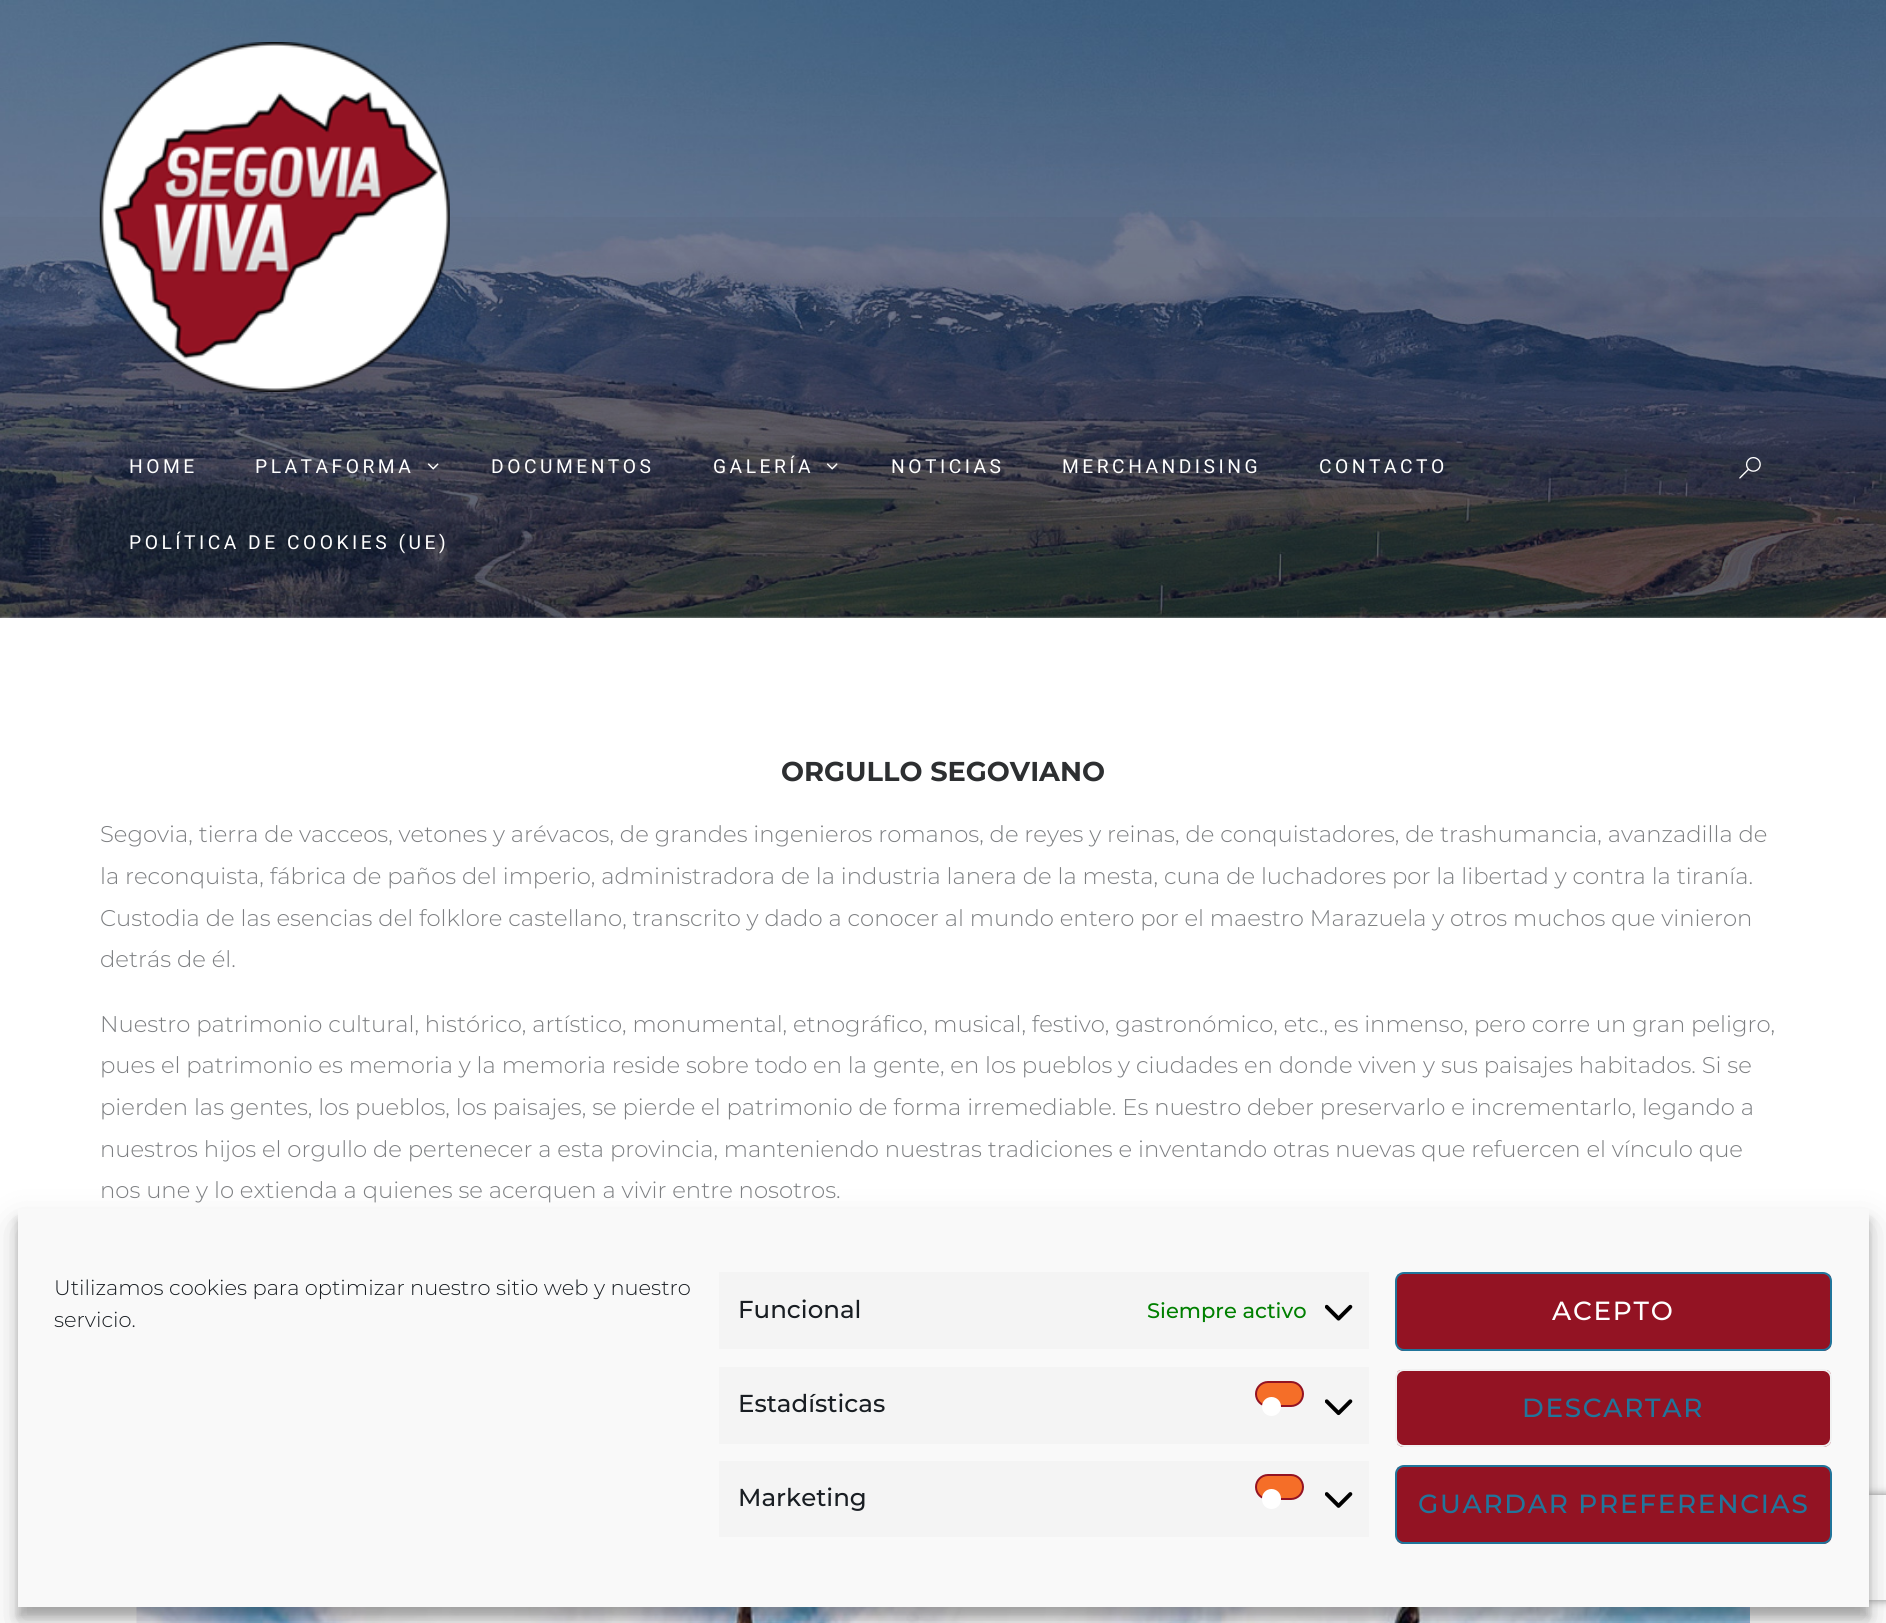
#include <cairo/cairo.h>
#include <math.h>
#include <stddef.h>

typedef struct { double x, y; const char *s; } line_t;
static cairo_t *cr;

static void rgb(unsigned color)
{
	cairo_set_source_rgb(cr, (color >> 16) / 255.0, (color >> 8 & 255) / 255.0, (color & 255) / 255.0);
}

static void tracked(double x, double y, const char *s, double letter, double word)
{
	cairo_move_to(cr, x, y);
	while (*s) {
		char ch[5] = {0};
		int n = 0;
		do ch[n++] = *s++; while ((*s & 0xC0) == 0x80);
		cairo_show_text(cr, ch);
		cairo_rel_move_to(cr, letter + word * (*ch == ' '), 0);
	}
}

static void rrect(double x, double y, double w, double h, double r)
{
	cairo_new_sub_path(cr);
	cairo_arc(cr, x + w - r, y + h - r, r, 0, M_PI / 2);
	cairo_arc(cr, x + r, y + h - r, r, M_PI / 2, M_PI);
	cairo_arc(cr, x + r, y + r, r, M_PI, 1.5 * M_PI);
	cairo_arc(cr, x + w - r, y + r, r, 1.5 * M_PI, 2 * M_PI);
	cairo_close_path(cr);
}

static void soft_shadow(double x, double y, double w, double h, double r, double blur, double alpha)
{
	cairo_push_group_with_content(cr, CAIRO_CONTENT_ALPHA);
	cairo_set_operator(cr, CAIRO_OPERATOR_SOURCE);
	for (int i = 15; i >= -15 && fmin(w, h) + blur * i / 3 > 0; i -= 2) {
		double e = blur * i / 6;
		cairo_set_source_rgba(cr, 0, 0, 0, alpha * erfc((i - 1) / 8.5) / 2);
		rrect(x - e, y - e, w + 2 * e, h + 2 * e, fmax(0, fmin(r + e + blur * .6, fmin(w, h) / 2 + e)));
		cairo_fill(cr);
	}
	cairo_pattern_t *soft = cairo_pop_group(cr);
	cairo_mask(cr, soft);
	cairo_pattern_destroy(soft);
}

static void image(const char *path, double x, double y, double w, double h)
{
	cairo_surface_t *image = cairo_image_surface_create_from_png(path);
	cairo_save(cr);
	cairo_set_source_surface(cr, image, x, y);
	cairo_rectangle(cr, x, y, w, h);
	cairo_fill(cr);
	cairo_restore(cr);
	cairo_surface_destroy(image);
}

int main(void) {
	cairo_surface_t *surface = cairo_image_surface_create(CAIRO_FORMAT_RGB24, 1886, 1623);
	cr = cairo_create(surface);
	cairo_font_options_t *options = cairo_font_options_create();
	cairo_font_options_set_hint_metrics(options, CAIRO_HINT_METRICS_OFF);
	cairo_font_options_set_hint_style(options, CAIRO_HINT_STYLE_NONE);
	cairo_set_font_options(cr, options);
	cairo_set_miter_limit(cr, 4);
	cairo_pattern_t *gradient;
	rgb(0xffffff);
	cairo_paint(cr);
	image("img/1.png", 0, 0, 1886, 618);
	gradient = cairo_pattern_create_linear(943, 618, 943, 0);
	cairo_pattern_add_color_stop_rgba(gradient, 0, 0, 0, 0, 0.3);
	cairo_pattern_add_color_stop_rgba(gradient, 0.7, 0, 0, 0, 0);
	cairo_set_source(cr, gradient);
	cairo_pattern_destroy(gradient);
	cairo_rectangle(cr, 0, 217, 1886, 401);
	cairo_fill(cr);
	cairo_set_source_rgba(cr, 1, 1, 1, 0.06);
	cairo_rectangle(cr, 0, 616, 1886, 2);
	cairo_fill(cr);
	image("img/2.png", 99, 42, 351, 350);
	image("img/3.png", 427, 463, 12, 7);
	image("img/4.png", 826, 463, 12, 7);
	image("img/5.png", 1739, 457, 22, 22);
	image("img/6.png", 136, 1607, 1614, 16);
	rgb(0x000000);
	soft_shadow(18, 1220, 1851, 397, 0, 5, 0.23);
	soft_shadow(18, 1227, 1851, 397, 0, 17.5, 0.19);
	cairo_save(cr);
	cairo_set_fill_rule(cr, CAIRO_FILL_RULE_EVEN_ODD);
	cairo_new_path(cr);
	cairo_move_to(cr, 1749, 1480);
	cairo_line_to(cr, 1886, 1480);
	cairo_line_to(cr, 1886, 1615);
	cairo_line_to(cr, 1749, 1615);
	cairo_close_path(cr);
	cairo_move_to(cr, 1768, 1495);
	cairo_line_to(cr, 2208, 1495);
	cairo_curve_to(cr, 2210, 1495, 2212, 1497, 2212, 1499);
	cairo_line_to(cr, 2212, 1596);
	cairo_curve_to(cr, 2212, 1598, 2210, 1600, 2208, 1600);
	cairo_line_to(cr, 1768, 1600);
	cairo_curve_to(cr, 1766, 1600, 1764, 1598, 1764, 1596);
	cairo_line_to(cr, 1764, 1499);
	cairo_curve_to(cr, 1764, 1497, 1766, 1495, 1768, 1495);
	cairo_close_path(cr);
	cairo_clip(cr);
	rgb(0x808080);
	soft_shadow(1764, 1495, 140, 105, 4, 4.5, 1);
	cairo_restore(cr);
	rgb(0xf9f9f9);
	cairo_rectangle(cr, 18, 1209, 1851, 398);
	cairo_fill(cr);
	rgb(0xf4f4f4);
	cairo_rectangle(cr, 719, 1272, 650, 77);
	cairo_fill(cr);
	image("img/7.png", 1325, 1304, 28, 17);
	cairo_rectangle(cr, 719, 1367, 650, 77);
	cairo_fill(cr);
	rgb(0xf56e28);
	rrect(1256, 1382, 47, 24, 12);
	cairo_fill_preserve(cr);
	rgb(0x931323);
	cairo_stroke(cr);
	rgb(0xffffff);
	cairo_arc(cr, 1271.5, 1406.5, 9.5, 0, 2 * M_PI);
	cairo_fill(cr);
	image("img/8.png", 1325, 1399, 28, 17);
	rgb(0xf4f4f4);
	cairo_rectangle(cr, 719, 1461, 650, 76);
	cairo_fill(cr);
	rgb(0xf56e28);
	rrect(1256, 1475, 47, 24, 12);
	cairo_fill_preserve(cr);
	rgb(0x931323);
	cairo_stroke(cr);
	rgb(0xffffff);
	rrect(1262, 1489, 19, 20, 9.5);
	cairo_fill(cr);
	image("img/9.png", 1325, 1492, 28, 16);
	cairo_save(cr);
	rrect(1395, 1272, 437, 79, 9);
	cairo_clip(cr);
	rgb(0x931323);
	cairo_rectangle(cr, 1397, 1274, 434, 77);
	cairo_fill(cr);
	cairo_restore(cr);
	rrect(1396, 1273, 435, 77, 8);
	rgb(0x21759b);
	cairo_stroke(cr);
	cairo_save(cr);
	rrect(1395, 1369, 437, 78, 9);
	cairo_clip(cr);
	rgb(0x931323);
	cairo_rectangle(cr, 1397, 1370, 434, 77);
	cairo_fill(cr);
	cairo_restore(cr);
	rrect(1396, 1370, 435, 76, 8);
	rgb(0xf1f1f1);
	cairo_stroke(cr);
	cairo_save(cr);
	rrect(1395, 1465, 437, 79, 9);
	cairo_clip(cr);
	rgb(0x931323);
	cairo_rectangle(cr, 1397, 1467, 434, 77);
	cairo_fill(cr);
	cairo_restore(cr);
	rrect(1396, 1466, 435, 77, 8);
	rgb(0x21759b);
	cairo_stroke(cr);
	cairo_select_font_face(cr, "Roboto", CAIRO_FONT_SLANT_NORMAL, CAIRO_FONT_WEIGHT_NORMAL);
	cairo_set_font_size(cr, 19.25);
	rgb(0xffffff);
	{
		static const line_t items[] = {
			{129, 473, "HOME"},
			{255, 473, "PLATAFORMA"},
			{491, 473, "DOCUMENTOS"},
			{713, 473, "GALERÍA"},
			{891, 473, "NOTICIAS"},
			{1062, 473, "MERCHANDISING"},
			{1319, 473, "CONTACTO"},
			{129, 549, "POLÍTICA DE COOKIES (UE)"},
		};
		for (size_t i = 0; i < sizeof items / sizeof *items; i++) {
			tracked(items[i].x, items[i].y, items[i].s, 3.5, 0);
		}
	}
	cairo_select_font_face(cr, "Montserrat", CAIRO_FONT_SLANT_NORMAL, CAIRO_FONT_WEIGHT_BOLD);
	cairo_set_font_size(cr, 27.25);
	rgb(0x2d2f31);
	cairo_move_to(cr, 781, 781);
	cairo_show_text(cr, "ORGULLO SEGOVIANO");
	cairo_select_font_face(cr, "Montserrat Light", CAIRO_FONT_SLANT_NORMAL, CAIRO_FONT_WEIGHT_NORMAL);
	cairo_set_font_size(cr, 22.75);
	rgb(0x7d7f82);
	{
		static const line_t items[] = {
			{100, 842, "Segovia, tierra de vacceos, vetones y arévacos, de grandes ingenieros romanos, de reyes y reinas, de conquistadores, de trashumancia, avanzadilla de"},
			{100, 884, "la reconquista, fábrica de paños del imperio, administradora de la industria lanera de la mesta, cuna de luchadores por la libertad y contra la tiranía."},
			{100, 926, "Custodia de las esencias del folklore castellano, transcrito y dado a conocer al mundo entero por el maestro Marazuela y otros muchos que vinieron"},
			{100, 967, "detrás de él."},
			{100, 1032, "Nuestro patrimonio cultural, histórico, artístico, monumental, etnográfico, musical, festivo, gastronómico, etc., es inmenso, pero corre un gran peligro,"},
			{100, 1073, "pues el patrimonio es memoria y la memoria reside sobre todo en la gente, en los pueblos y ciudades en donde viven y sus paisajes habitados. Si se"},
			{100, 1115, "pierden las gentes, los pueblos, los paisajes, se pierde el patrimonio de forma irremediable. Es nuestro deber preservarlo e incrementarlo, legando a"},
			{100, 1157, "nuestros hijos el orgullo de pertenecer a esta provincia, manteniendo nuestras tradiciones e inventando otras nuevas que refuercen el vínculo que"},
			{100, 1198, "nos une y lo extienda a quienes se acerquen a vivir entre nosotros."},
		};
		for (size_t i = 0; i < sizeof items / sizeof *items; i++) {
			cairo_move_to(cr, items[i].x, items[i].y);
			cairo_show_text(cr, items[i].s);
		}
	}
	cairo_set_font_size(cr, 21);
	rgb(0x191e23);
	cairo_move_to(cr, 54, 1295);
	cairo_show_text(cr, "Utilizamos cookies para optimizar nuestro sitio web y nuestro");
	cairo_move_to(cr, 54, 1327);
	cairo_show_text(cr, "servicio.");
	cairo_select_font_face(cr, "Montserrat Medium", CAIRO_FONT_SLANT_NORMAL, CAIRO_FONT_WEIGHT_NORMAL);
	cairo_set_font_size(cr, 24.5);
	cairo_move_to(cr, 738, 1318);
	cairo_show_text(cr, "Funcional");
	cairo_set_font_size(cr, 21);
	rgb(0x008000);
	cairo_move_to(cr, 1147, 1318);
	cairo_show_text(cr, "Siempre activo");
	cairo_set_font_size(cr, 24.5);
	rgb(0x191e23);
	cairo_move_to(cr, 738, 1412);
	cairo_show_text(cr, "Estadísticas");
	cairo_move_to(cr, 738, 1506);
	cairo_show_text(cr, "Marketing");
	cairo_set_font_size(cr, 26.25);
	rgb(0xffffff);
	tracked(1552, 1320, "ACEPTO", 1.75, 0);
	rgb(0x21759b);
	tracked(1522, 1417, "DESCARTAR", 1.75, 0);
	tracked(1418, 1513, "GUARDAR PREFERENCIAS", 1.75, 0);
	cairo_surface_write_to_png(surface, "page.png");
	cairo_font_options_destroy(options);
	cairo_destroy(cr);
	cairo_surface_destroy(surface);
	return 0;
}
